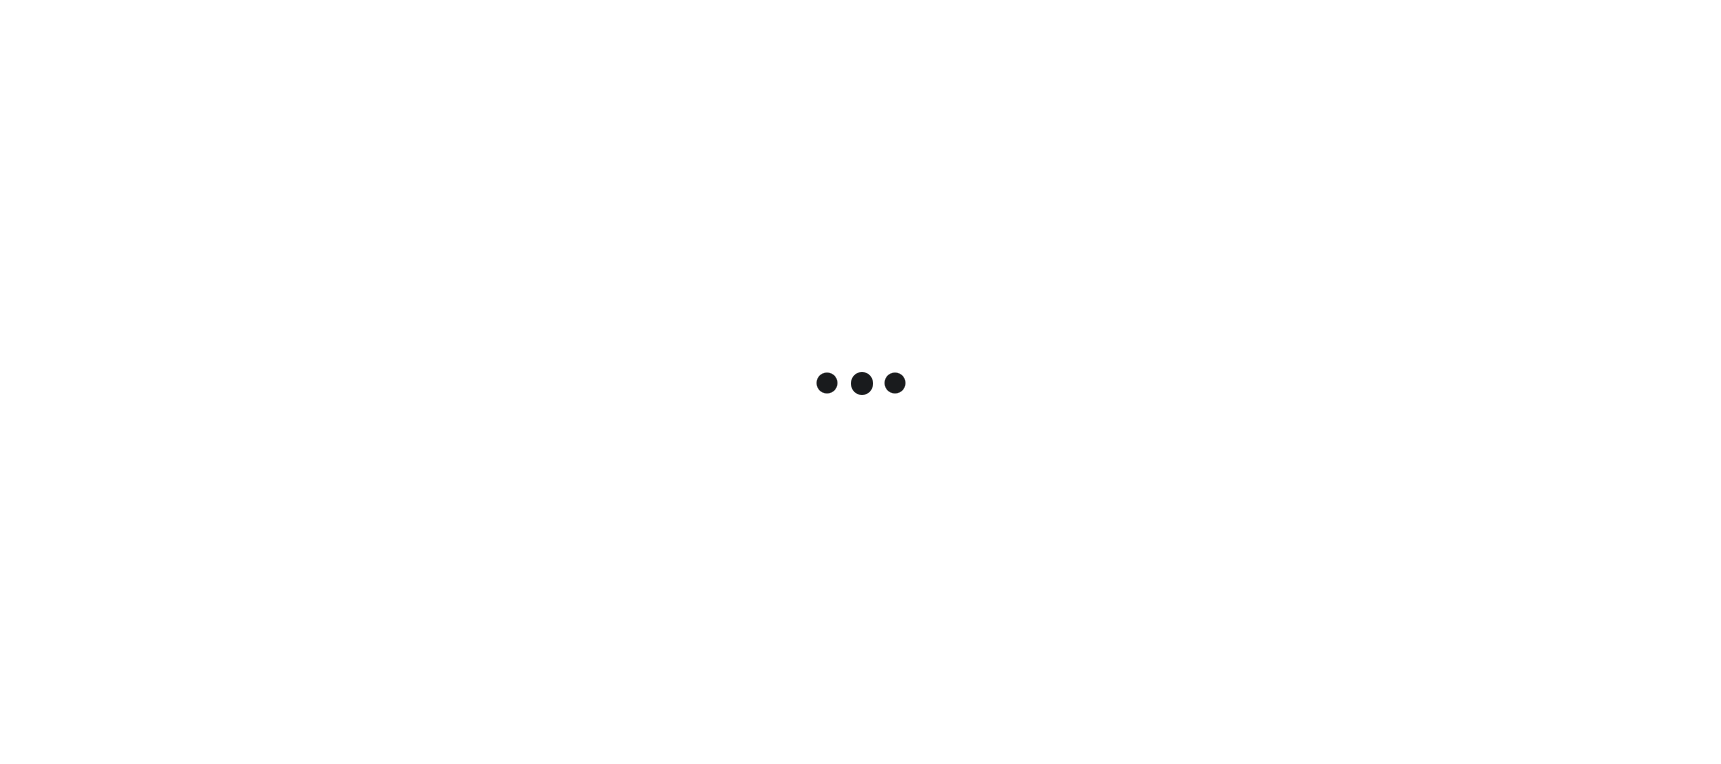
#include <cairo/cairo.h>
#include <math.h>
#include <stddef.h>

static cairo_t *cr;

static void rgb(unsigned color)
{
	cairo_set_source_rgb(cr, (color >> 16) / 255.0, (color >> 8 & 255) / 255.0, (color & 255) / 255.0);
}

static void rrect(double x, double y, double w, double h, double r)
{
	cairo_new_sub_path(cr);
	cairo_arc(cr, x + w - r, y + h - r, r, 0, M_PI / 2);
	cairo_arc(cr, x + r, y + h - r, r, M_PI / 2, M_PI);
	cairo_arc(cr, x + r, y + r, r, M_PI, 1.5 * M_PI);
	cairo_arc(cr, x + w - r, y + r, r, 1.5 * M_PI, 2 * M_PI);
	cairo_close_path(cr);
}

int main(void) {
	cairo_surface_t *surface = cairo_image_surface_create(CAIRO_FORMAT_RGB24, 1721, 764);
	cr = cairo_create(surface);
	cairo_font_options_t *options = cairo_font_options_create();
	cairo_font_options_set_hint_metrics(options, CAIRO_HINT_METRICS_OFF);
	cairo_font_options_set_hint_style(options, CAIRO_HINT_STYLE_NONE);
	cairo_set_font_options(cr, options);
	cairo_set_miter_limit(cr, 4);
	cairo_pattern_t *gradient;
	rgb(0xffffff);
	cairo_paint(cr);
	gradient = cairo_pattern_create_radial(895, 383, 0, 895, 383, 11);
	cairo_pattern_add_color_stop_rgba(gradient, 0.9, 0.098, 0.106, 0.114, 1);
	cairo_pattern_add_color_stop_rgba(gradient, 1, 1, 1, 1, 1);
	cairo_set_source(cr, gradient);
	cairo_pattern_destroy(gradient);
	cairo_rectangle(cr, 884, 372, 22, 22);
	cairo_fill(cr);
	gradient = cairo_pattern_create_radial(827, 383, 0, 827, 383, 11);
	cairo_pattern_add_color_stop_rgba(gradient, 0.9, 0.098, 0.106, 0.114, 1);
	cairo_pattern_add_color_stop_rgba(gradient, 1, 1, 1, 1, 1);
	cairo_set_source(cr, gradient);
	cairo_pattern_destroy(gradient);
	cairo_rectangle(cr, 816, 372, 22, 22);
	cairo_fill(cr);
	rgb(0x191b1d);
	rrect(851, 372, 22, 23, 11);
	cairo_fill(cr);
	cairo_surface_write_to_png(surface, "page.png");
	cairo_font_options_destroy(options);
	cairo_destroy(cr);
	cairo_surface_destroy(surface);
	return 0;
}
